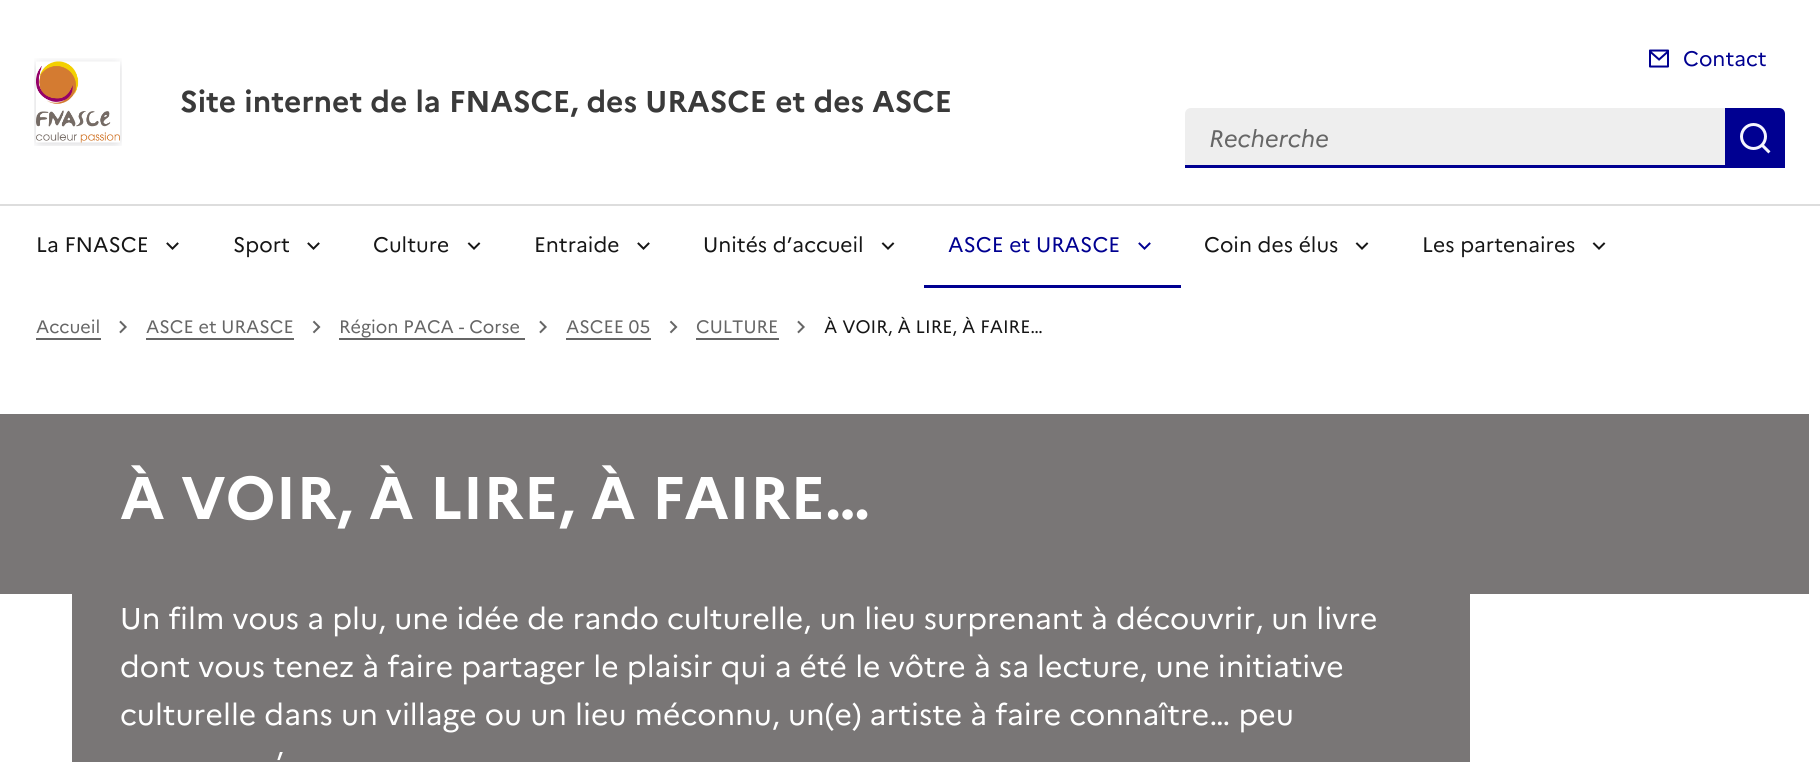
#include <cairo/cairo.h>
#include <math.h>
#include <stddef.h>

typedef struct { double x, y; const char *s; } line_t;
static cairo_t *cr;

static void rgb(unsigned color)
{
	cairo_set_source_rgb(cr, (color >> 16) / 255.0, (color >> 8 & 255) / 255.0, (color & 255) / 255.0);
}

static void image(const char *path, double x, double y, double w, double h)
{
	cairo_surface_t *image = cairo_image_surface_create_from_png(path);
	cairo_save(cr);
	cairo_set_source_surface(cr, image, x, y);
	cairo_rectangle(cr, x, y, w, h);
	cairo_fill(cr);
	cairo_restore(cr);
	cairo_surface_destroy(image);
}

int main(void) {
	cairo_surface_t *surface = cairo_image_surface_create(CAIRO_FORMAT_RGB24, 1820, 762);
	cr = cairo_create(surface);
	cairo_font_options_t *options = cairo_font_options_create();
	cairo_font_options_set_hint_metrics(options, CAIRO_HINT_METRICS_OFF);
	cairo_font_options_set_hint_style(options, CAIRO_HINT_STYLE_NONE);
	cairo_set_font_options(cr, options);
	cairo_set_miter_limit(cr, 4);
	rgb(0xffffff);
	cairo_paint(cr);
	image("img/1.png", 34, 58, 88, 88);
	image("img/2.png", 1649, 49, 20, 19);
	rgb(0xeeeeee);
	cairo_new_path(cr);
	cairo_move_to(cr, 1191, 108);
	cairo_line_to(cr, 1725, 108);
	cairo_line_to(cr, 1725, 168);
	cairo_line_to(cr, 1185, 168);
	cairo_line_to(cr, 1185, 114);
	cairo_curve_to(cr, 1185, 110.5, 1187.5, 108, 1191, 108);
	cairo_close_path(cr);
	cairo_fill(cr);
	rgb(0x000091);
	cairo_rectangle(cr, 1185, 165, 540, 3);
	cairo_fill(cr);
	cairo_new_path(cr);
	cairo_move_to(cr, 1725, 108);
	cairo_line_to(cr, 1779, 108);
	cairo_curve_to(cr, 1782.5, 108, 1785, 110.5, 1785, 114);
	cairo_line_to(cr, 1785, 168);
	cairo_line_to(cr, 1725, 168);
	cairo_close_path(cr);
	cairo_fill(cr);
	image("img/3.png", 1740, 123, 31, 31);
	rgb(0xdddddd);
	cairo_rectangle(cr, 0, 204, 1820, 2);
	cairo_fill(cr);
	image("img/4.png", 166, 242, 13, 8);
	image("img/4.png", 307, 242, 13, 8);
	image("img/5.png", 467, 242, 14, 8);
	image("img/4.png", 637, 242, 13, 8);
	image("img/5.png", 881, 242, 14, 8);
	image("img/6.png", 1138, 242, 13, 8);
	rgb(0x000091);
	cairo_rectangle(cr, 924, 285, 257, 3);
	cairo_fill(cr);
	image("img/5.png", 1355, 242, 14, 8);
	image("img/5.png", 1592, 242, 14, 8);
	rgb(0x666666);
	cairo_rectangle(cr, 36, 338, 65, 2);
	cairo_fill(cr);
	image("img/7.png", 119, 320, 8, 14);
	cairo_rectangle(cr, 146, 338, 148, 2);
	cairo_fill(cr);
	image("img/8.png", 312, 320, 9, 14);
	cairo_rectangle(cr, 339, 338, 186, 2);
	cairo_fill(cr);
	image("img/7.png", 539, 320, 8, 14);
	cairo_rectangle(cr, 566, 338, 85, 2);
	cairo_fill(cr);
	image("img/8.png", 669, 320, 9, 14);
	cairo_rectangle(cr, 696, 338, 83, 2);
	cairo_fill(cr);
	image("img/7.png", 797, 320, 8, 14);
	rgb(0x797676);
	cairo_rectangle(cr, 0, 414, 1809, 180);
	cairo_fill(cr);
	cairo_rectangle(cr, 72, 594, 1398, 168);
	cairo_fill(cr);
	cairo_select_font_face(cr, "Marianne", CAIRO_FONT_SLANT_NORMAL, CAIRO_FONT_WEIGHT_BOLD);
	cairo_set_font_size(cr, 30);
	rgb(0x3a3a3a);
	cairo_move_to(cr, 180, 112);
	cairo_show_text(cr, "Site internet de la FNASCE, des URASCE et des ASCE");
	cairo_select_font_face(cr, "Marianne", CAIRO_FONT_SLANT_NORMAL, CAIRO_FONT_WEIGHT_NORMAL);
	cairo_set_font_size(cr, 21);
	rgb(0x000091);
	cairo_move_to(cr, 1683, 66);
	cairo_show_text(cr, "Contact");
	cairo_select_font_face(cr, "Marianne", CAIRO_FONT_SLANT_ITALIC, CAIRO_FONT_WEIGHT_NORMAL);
	cairo_set_font_size(cr, 24);
	rgb(0x666666);
	cairo_move_to(cr, 1209, 147);
	cairo_show_text(cr, "Recherche");
	cairo_select_font_face(cr, "Marianne", CAIRO_FONT_SLANT_NORMAL, CAIRO_FONT_WEIGHT_NORMAL);
	cairo_set_font_size(cr, 21);
	rgb(0x161616);
	{
		static const line_t items[] = {
			{36, 252, "La FNASCE"},
			{233, 252, "Sport"},
			{373, 252, "Culture"},
			{534, 252, "Entraide"},
			{703, 252, "Unités d’accueil"},
		};
		for (size_t i = 0; i < sizeof items / sizeof *items; i++) {
			cairo_move_to(cr, items[i].x, items[i].y);
			cairo_show_text(cr, items[i].s);
		}
	}
	rgb(0x000091);
	cairo_move_to(cr, 948, 252);
	cairo_show_text(cr, "ASCE et URASCE");
	rgb(0x161616);
	cairo_move_to(cr, 1204, 252);
	cairo_show_text(cr, "Coin des élus");
	cairo_move_to(cr, 1422, 252);
	cairo_show_text(cr, "Les partenaires");
	cairo_set_font_size(cr, 18);
	rgb(0x666666);
	{
		static const line_t items[] = {
			{36, 333, "Accueil"},
			{146, 333, "ASCE et URASCE"},
			{339, 333, "Région PACA - Corse"},
			{566, 333, "ASCEE 05"},
			{696, 333, "CULTURE"},
		};
		for (size_t i = 0; i < sizeof items / sizeof *items; i++) {
			cairo_move_to(cr, items[i].x, items[i].y);
			cairo_show_text(cr, items[i].s);
		}
	}
	rgb(0x161616);
	cairo_move_to(cr, 824, 333);
	cairo_show_text(cr, "À VOIR, À LIRE, À FAIRE…");
	cairo_select_font_face(cr, "Marianne", CAIRO_FONT_SLANT_NORMAL, CAIRO_FONT_WEIGHT_BOLD);
	cairo_set_font_size(cr, 60);
	rgb(0xffffff);
	cairo_move_to(cr, 120, 519);
	cairo_show_text(cr, "À VOIR, À LIRE, À FAIRE…");
	cairo_select_font_face(cr, "Marianne", CAIRO_FONT_SLANT_NORMAL, CAIRO_FONT_WEIGHT_NORMAL);
	cairo_set_font_size(cr, 30);
	{
		static const line_t items[] = {
			{120, 629, "Un film vous a plu, une idée de rando culturelle, un lieu surprenant à découvrir, un livre"},
			{120, 677, "dont vous tenez à faire partager le plaisir qui a été le vôtre à sa lecture, une initiative"},
			{120, 725, "culturelle dans un village ou un lieu méconnu, un(e) artiste à faire connaître… peu"},
			{276, 773, "’"},
		};
		for (size_t i = 0; i < sizeof items / sizeof *items; i++) {
			cairo_move_to(cr, items[i].x, items[i].y);
			cairo_show_text(cr, items[i].s);
		}
	}
	cairo_surface_write_to_png(surface, "page.png");
	cairo_font_options_destroy(options);
	cairo_destroy(cr);
	cairo_surface_destroy(surface);
	return 0;
}
